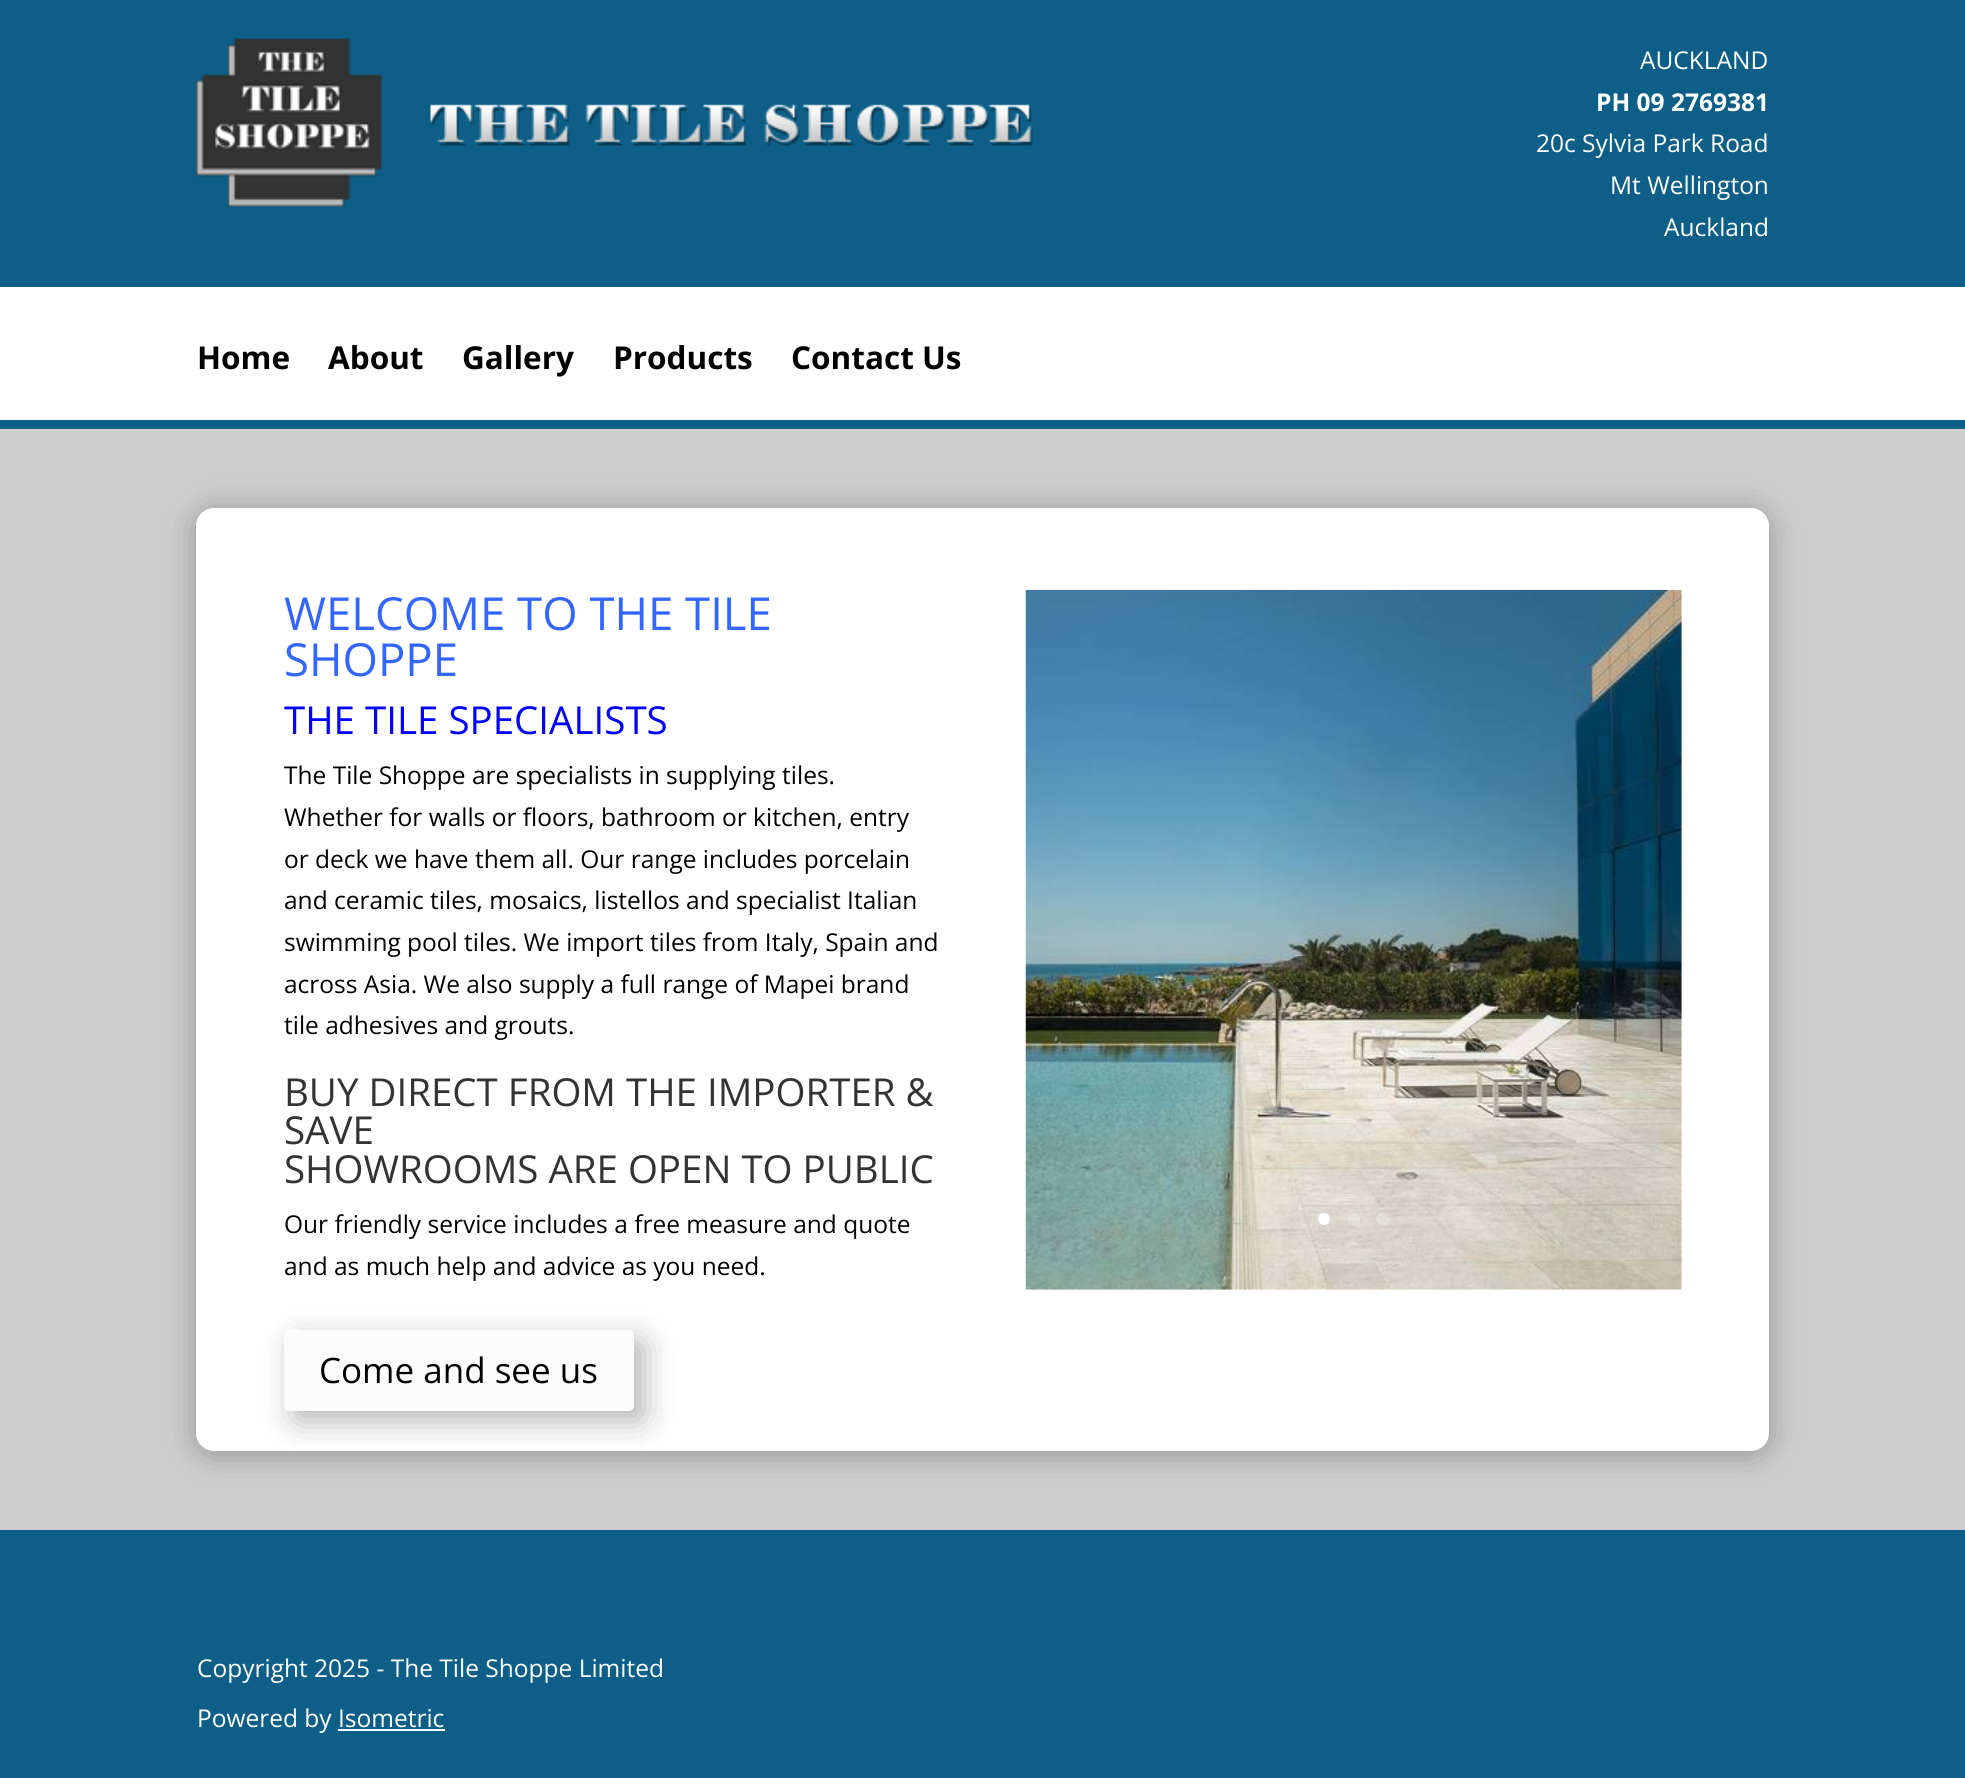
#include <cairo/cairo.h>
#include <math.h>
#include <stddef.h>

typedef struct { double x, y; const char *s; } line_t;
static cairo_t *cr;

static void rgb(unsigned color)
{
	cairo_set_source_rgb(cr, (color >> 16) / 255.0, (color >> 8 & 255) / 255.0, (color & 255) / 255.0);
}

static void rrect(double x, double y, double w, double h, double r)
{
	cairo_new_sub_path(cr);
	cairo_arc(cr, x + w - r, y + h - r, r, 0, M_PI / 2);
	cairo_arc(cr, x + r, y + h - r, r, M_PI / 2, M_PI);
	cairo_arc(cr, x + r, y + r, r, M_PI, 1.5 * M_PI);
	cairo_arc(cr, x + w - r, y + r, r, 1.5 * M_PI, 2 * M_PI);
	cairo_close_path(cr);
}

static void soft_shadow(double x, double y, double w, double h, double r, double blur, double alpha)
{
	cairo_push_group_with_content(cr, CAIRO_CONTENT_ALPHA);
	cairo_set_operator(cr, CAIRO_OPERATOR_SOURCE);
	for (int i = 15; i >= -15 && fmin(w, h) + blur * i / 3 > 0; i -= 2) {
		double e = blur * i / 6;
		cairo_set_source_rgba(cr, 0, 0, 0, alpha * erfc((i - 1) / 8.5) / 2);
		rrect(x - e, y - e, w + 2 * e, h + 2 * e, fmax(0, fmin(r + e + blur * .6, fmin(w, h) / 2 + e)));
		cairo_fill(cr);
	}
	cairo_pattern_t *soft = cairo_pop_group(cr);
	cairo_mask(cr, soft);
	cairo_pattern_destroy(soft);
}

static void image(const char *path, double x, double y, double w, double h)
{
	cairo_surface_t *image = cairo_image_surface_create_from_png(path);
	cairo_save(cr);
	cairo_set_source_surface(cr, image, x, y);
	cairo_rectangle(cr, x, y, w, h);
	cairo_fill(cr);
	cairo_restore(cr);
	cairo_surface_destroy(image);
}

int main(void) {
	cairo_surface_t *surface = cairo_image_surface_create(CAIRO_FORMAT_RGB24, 1965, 1778);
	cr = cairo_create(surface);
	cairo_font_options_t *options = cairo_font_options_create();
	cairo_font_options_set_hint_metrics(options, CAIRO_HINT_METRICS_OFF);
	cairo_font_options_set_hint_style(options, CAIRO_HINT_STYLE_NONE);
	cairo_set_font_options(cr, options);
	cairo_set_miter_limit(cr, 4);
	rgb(0xffffff);
	cairo_paint(cr);
	rgb(0x0d5f88);
	cairo_rectangle(cr, 0, 0, 1965, 287);
	cairo_fill(cr);
	image("img/1.png", 196, 38, 837, 169);
	cairo_rectangle(cr, 0, 420, 1965, 9);
	cairo_fill(cr);
	rgb(0xcecece);
	cairo_rectangle(cr, 0, 429, 1965, 1101);
	cairo_fill(cr);
	rgb(0x000000);
	soft_shadow(196, 511, 1573, 943, 18, 16, 0.3);
	rgb(0xffffff);
	rrect(196, 508, 1573, 943, 18);
	cairo_fill(cr);
	rgb(0x000000);
	soft_shadow(294, 1341, 350, 80, 5, 16, 0.3);
	rgb(0xfcfcfc);
	rrect(284, 1330, 350, 81, 5);
	cairo_fill(cr);
	image("img/2.png", 1025, 589, 657, 701);
	rgb(0xffffff);
	cairo_arc(cr, 1324, 1219, 6, 0, 2 * M_PI);
	cairo_fill(cr);
	cairo_set_source_rgba(cr, 1, 1, 1, 0.25);
	cairo_arc(cr, 1354, 1219, 6, 0, 2 * M_PI);
	cairo_fill(cr);
	rrect(1377, 1213, 13, 12, 6);
	cairo_fill(cr);
	rgb(0x0d5f88);
	cairo_rectangle(cr, 0, 1530, 1965, 248);
	cairo_fill(cr);
	rgb(0xffffff);
	cairo_rectangle(cr, 338, 1729, 107, 2);
	cairo_fill(cr);
	cairo_select_font_face(cr, "Open Sans", CAIRO_FONT_SLANT_NORMAL, CAIRO_FONT_WEIGHT_NORMAL);
	cairo_set_font_size(cr, 24.5);
	cairo_move_to(cr, 1640, 69);
	cairo_show_text(cr, "AUCKLAND");
	cairo_select_font_face(cr, "Open Sans", CAIRO_FONT_SLANT_NORMAL, CAIRO_FONT_WEIGHT_BOLD);
	cairo_move_to(cr, 1596, 111);
	cairo_show_text(cr, "PH 09 2769381");
	cairo_select_font_face(cr, "Open Sans", CAIRO_FONT_SLANT_NORMAL, CAIRO_FONT_WEIGHT_NORMAL);
	{
		static const line_t items[] = {
			{1536, 152, "20c Sylvia Park Road"},
			{1610, 194, "Mt Wellington"},
			{1664, 236, "Auckland"},
		};
		for (size_t i = 0; i < sizeof items / sizeof *items; i++) {
			cairo_move_to(cr, items[i].x, items[i].y);
			cairo_show_text(cr, items[i].s);
		}
	}
	cairo_select_font_face(cr, "Open Sans", CAIRO_FONT_SLANT_NORMAL, CAIRO_FONT_WEIGHT_BOLD);
	cairo_set_font_size(cr, 31.5);
	rgb(0x000000);
	{
		static const line_t items[] = {
			{197, 369, "Home"},
			{328, 369, "About"},
			{462, 369, "Gallery"},
			{613, 369, "Products"},
			{791, 369, "Contact Us"},
		};
		for (size_t i = 0; i < sizeof items / sizeof *items; i++) {
			cairo_move_to(cr, items[i].x, items[i].y);
			cairo_show_text(cr, items[i].s);
		}
	}
	cairo_select_font_face(cr, "Open Sans", CAIRO_FONT_SLANT_NORMAL, CAIRO_FONT_WEIGHT_NORMAL);
	cairo_set_font_size(cr, 45.5);
	rgb(0x3366ff);
	cairo_move_to(cr, 284, 630);
	cairo_show_text(cr, "WELCOME TO THE TILE");
	cairo_move_to(cr, 284, 676);
	cairo_show_text(cr, "SHOPPE");
	cairo_set_font_size(cr, 38.5);
	rgb(0x0000ff);
	cairo_move_to(cr, 284, 734);
	cairo_show_text(cr, "THE TILE SPECIALISTS");
	cairo_set_font_size(cr, 24.5);
	rgb(0x000000);
	{
		static const line_t items[] = {
			{284, 784, "The Tile Shoppe are specialists in supplying tiles."},
			{284, 826, "Whether for walls or floors, bathroom or kitchen, entry"},
			{284, 868, "or deck we have them all. Our range includes porcelain"},
			{284, 909, "and ceramic tiles, mosaics, listellos and specialist Italian"},
			{284, 951, "swimming pool tiles. We import tiles from Italy, Spain and"},
			{284, 993, "across Asia. We also supply a full range of Mapei brand"},
			{284, 1034, "tile adhesives and grouts."},
		};
		for (size_t i = 0; i < sizeof items / sizeof *items; i++) {
			cairo_move_to(cr, items[i].x, items[i].y);
			cairo_show_text(cr, items[i].s);
		}
	}
	cairo_set_font_size(cr, 38.5);
	rgb(0x333333);
	{
		static const line_t items[] = {
			{284, 1106, "BUY DIRECT FROM THE IMPORTER &"},
			{284, 1144, "SAVE"},
			{284, 1183, "SHOWROOMS ARE OPEN TO PUBLIC"},
		};
		for (size_t i = 0; i < sizeof items / sizeof *items; i++) {
			cairo_move_to(cr, items[i].x, items[i].y);
			cairo_show_text(cr, items[i].s);
		}
	}
	cairo_set_font_size(cr, 24.5);
	rgb(0x000000);
	cairo_move_to(cr, 284, 1233);
	cairo_show_text(cr, "Our friendly service includes a free measure and quote");
	cairo_move_to(cr, 284, 1275);
	cairo_show_text(cr, "and as much help and advice as you need.");
	cairo_set_font_size(cr, 35);
	cairo_move_to(cr, 319, 1383);
	cairo_show_text(cr, "Come and see us");
	cairo_set_font_size(cr, 24.5);
	rgb(0xffffff);
	cairo_move_to(cr, 197, 1677);
	cairo_show_text(cr, "Copyright 2025 - The Tile Shoppe Limited");
	cairo_move_to(cr, 197, 1727);
	cairo_show_text(cr, "Powered by Isometric");
	cairo_surface_write_to_png(surface, "page.png");
	cairo_font_options_destroy(options);
	cairo_destroy(cr);
	cairo_surface_destroy(surface);
	return 0;
}
